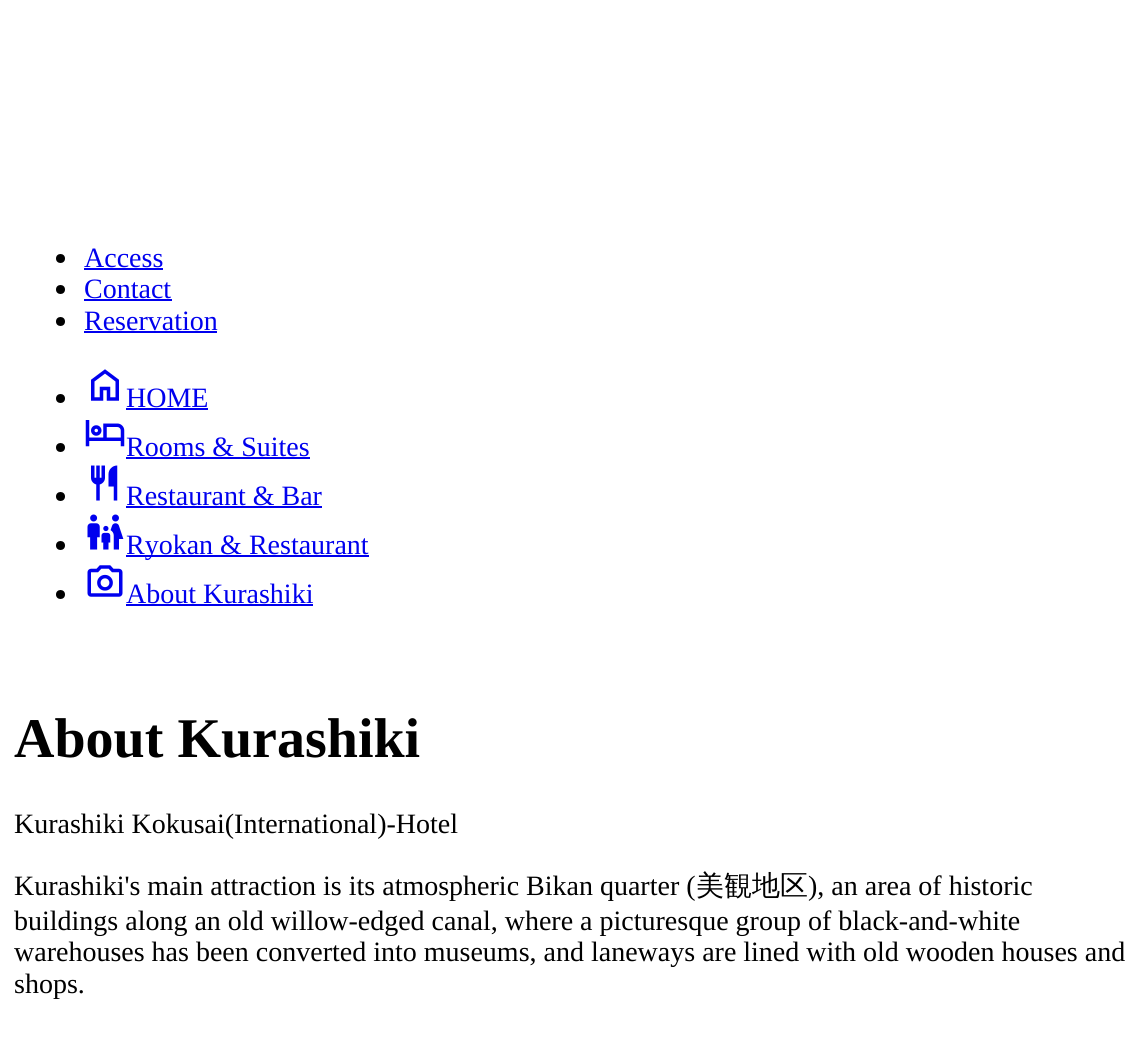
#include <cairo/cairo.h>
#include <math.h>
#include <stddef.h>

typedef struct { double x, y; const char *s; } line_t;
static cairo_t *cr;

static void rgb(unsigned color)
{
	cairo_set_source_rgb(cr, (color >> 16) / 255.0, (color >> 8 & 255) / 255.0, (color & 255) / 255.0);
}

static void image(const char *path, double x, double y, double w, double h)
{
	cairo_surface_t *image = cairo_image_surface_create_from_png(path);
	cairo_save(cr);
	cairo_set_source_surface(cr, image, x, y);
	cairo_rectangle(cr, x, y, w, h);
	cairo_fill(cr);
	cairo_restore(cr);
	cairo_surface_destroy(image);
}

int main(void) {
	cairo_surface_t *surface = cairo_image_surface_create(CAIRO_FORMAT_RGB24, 1141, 1039);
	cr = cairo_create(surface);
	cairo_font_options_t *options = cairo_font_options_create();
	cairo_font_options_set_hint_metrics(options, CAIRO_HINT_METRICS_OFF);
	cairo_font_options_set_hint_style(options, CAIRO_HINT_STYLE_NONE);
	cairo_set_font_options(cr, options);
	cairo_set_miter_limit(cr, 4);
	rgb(0xffffff);
	cairo_paint(cr);
	rgb(0x000000);
	cairo_arc(cr, 60.5, 258.5, 4.5, 0, 2 * M_PI);
	cairo_fill(cr);
	rgb(0x0000ee);
	cairo_rectangle(cr, 84, 268, 79, 2);
	cairo_fill(cr);
	rgb(0x000000);
	cairo_arc(cr, 60.5, 289.5, 4.5, 0, 2 * M_PI);
	cairo_fill(cr);
	rgb(0x0000ee);
	cairo_rectangle(cr, 84, 299, 88, 2);
	cairo_fill(cr);
	rgb(0x000000);
	cairo_arc(cr, 60.5, 321.5, 4.5, 0, 2 * M_PI);
	cairo_fill(cr);
	rgb(0x0000ee);
	cairo_rectangle(cr, 84, 331, 133, 2);
	cairo_fill(cr);
	rgb(0x000000);
	cairo_arc(cr, 60.5, 398.5, 4.5, 0, 2 * M_PI);
	cairo_fill(cr);
	image("img/1.png", 91, 369, 28, 32);
	rgb(0x0000ee);
	cairo_rectangle(cr, 126, 408, 82, 2);
	cairo_fill(cr);
	rgb(0x000000);
	cairo_arc(cr, 60.5, 447.5, 4.5, 0, 2 * M_PI);
	cairo_fill(cr);
	image("img/2.png", 85, 420, 40, 27);
	rgb(0x0000ee);
	cairo_rectangle(cr, 126, 457, 184, 2);
	cairo_fill(cr);
	rgb(0x000000);
	cairo_arc(cr, 60.5, 496.5, 4.5, 0, 2 * M_PI);
	cairo_fill(cr);
	image("img/3.png", 91, 465, 27, 36);
	rgb(0x0000ee);
	cairo_rectangle(cr, 126, 506, 196, 2);
	cairo_fill(cr);
	rgb(0x000000);
	cairo_arc(cr, 60.5, 545.5, 4.5, 0, 2 * M_PI);
	cairo_fill(cr);
	image("img/4.png", 87, 514, 37, 36);
	rgb(0x0000ee);
	cairo_rectangle(cr, 126, 555, 243, 2);
	cairo_fill(cr);
	rgb(0x000000);
	cairo_arc(cr, 60.5, 594.5, 4.5, 0, 2 * M_PI);
	cairo_fill(cr);
	image("img/5.png", 87, 565, 36, 32);
	rgb(0x0000ee);
	cairo_rectangle(cr, 126, 604, 187, 2);
	cairo_fill(cr);
	cairo_select_font_face(cr, "Liberation Serif", CAIRO_FONT_SLANT_NORMAL, CAIRO_FONT_WEIGHT_NORMAL);
	cairo_set_font_size(cr, 28);
	{
		static const line_t items[] = {
			{84, 267, "Access"},
			{84, 298, "Contact"},
			{84, 330, "Reservation"},
			{126, 407, "HOME"},
			{126, 456, "Rooms & Suites"},
			{126, 505, "Restaurant & Bar"},
			{126, 554, "Ryokan & Restaurant"},
			{126, 603, "About Kurashiki"},
		};
		for (size_t i = 0; i < sizeof items / sizeof *items; i++) {
			cairo_move_to(cr, items[i].x, items[i].y);
			cairo_show_text(cr, items[i].s);
		}
	}
	cairo_select_font_face(cr, "Liberation Serif", CAIRO_FONT_SLANT_NORMAL, CAIRO_FONT_WEIGHT_BOLD);
	cairo_set_font_size(cr, 56);
	rgb(0x000000);
	cairo_move_to(cr, 14, 757);
	cairo_show_text(cr, "About Kurashiki");
	cairo_select_font_face(cr, "Liberation Serif", CAIRO_FONT_SLANT_NORMAL, CAIRO_FONT_WEIGHT_NORMAL);
	cairo_set_font_size(cr, 28);
	cairo_move_to(cr, 14, 833);
	cairo_show_text(cr, "Kurashiki Kokusai(International)-Hotel");
	cairo_move_to(cr, 14, 895);
	cairo_show_text(cr, "Kurashiki's main attraction is its atmospheric Bikan quarter (");
	cairo_select_font_face(cr, "WenQuanYi Zen Hei Medium", CAIRO_FONT_SLANT_NORMAL, CAIRO_FONT_WEIGHT_NORMAL);
	cairo_move_to(cr, 696, 895);
	cairo_show_text(cr, "美観地区");
	cairo_select_font_face(cr, "Liberation Serif", CAIRO_FONT_SLANT_NORMAL, CAIRO_FONT_WEIGHT_NORMAL);
	{
		static const line_t items[] = {
			{808, 895, "), an area of historic"},
			{14, 930, "buildings along an old willow-edged canal, where a picturesque group of black-and-white"},
			{14, 961, "warehouses has been converted into museums, and laneways are lined with old wooden houses and"},
			{14, 993, "shops."},
		};
		for (size_t i = 0; i < sizeof items / sizeof *items; i++) {
			cairo_move_to(cr, items[i].x, items[i].y);
			cairo_show_text(cr, items[i].s);
		}
	}
	cairo_surface_write_to_png(surface, "page.png");
	cairo_font_options_destroy(options);
	cairo_destroy(cr);
	cairo_surface_destroy(surface);
	return 0;
}
